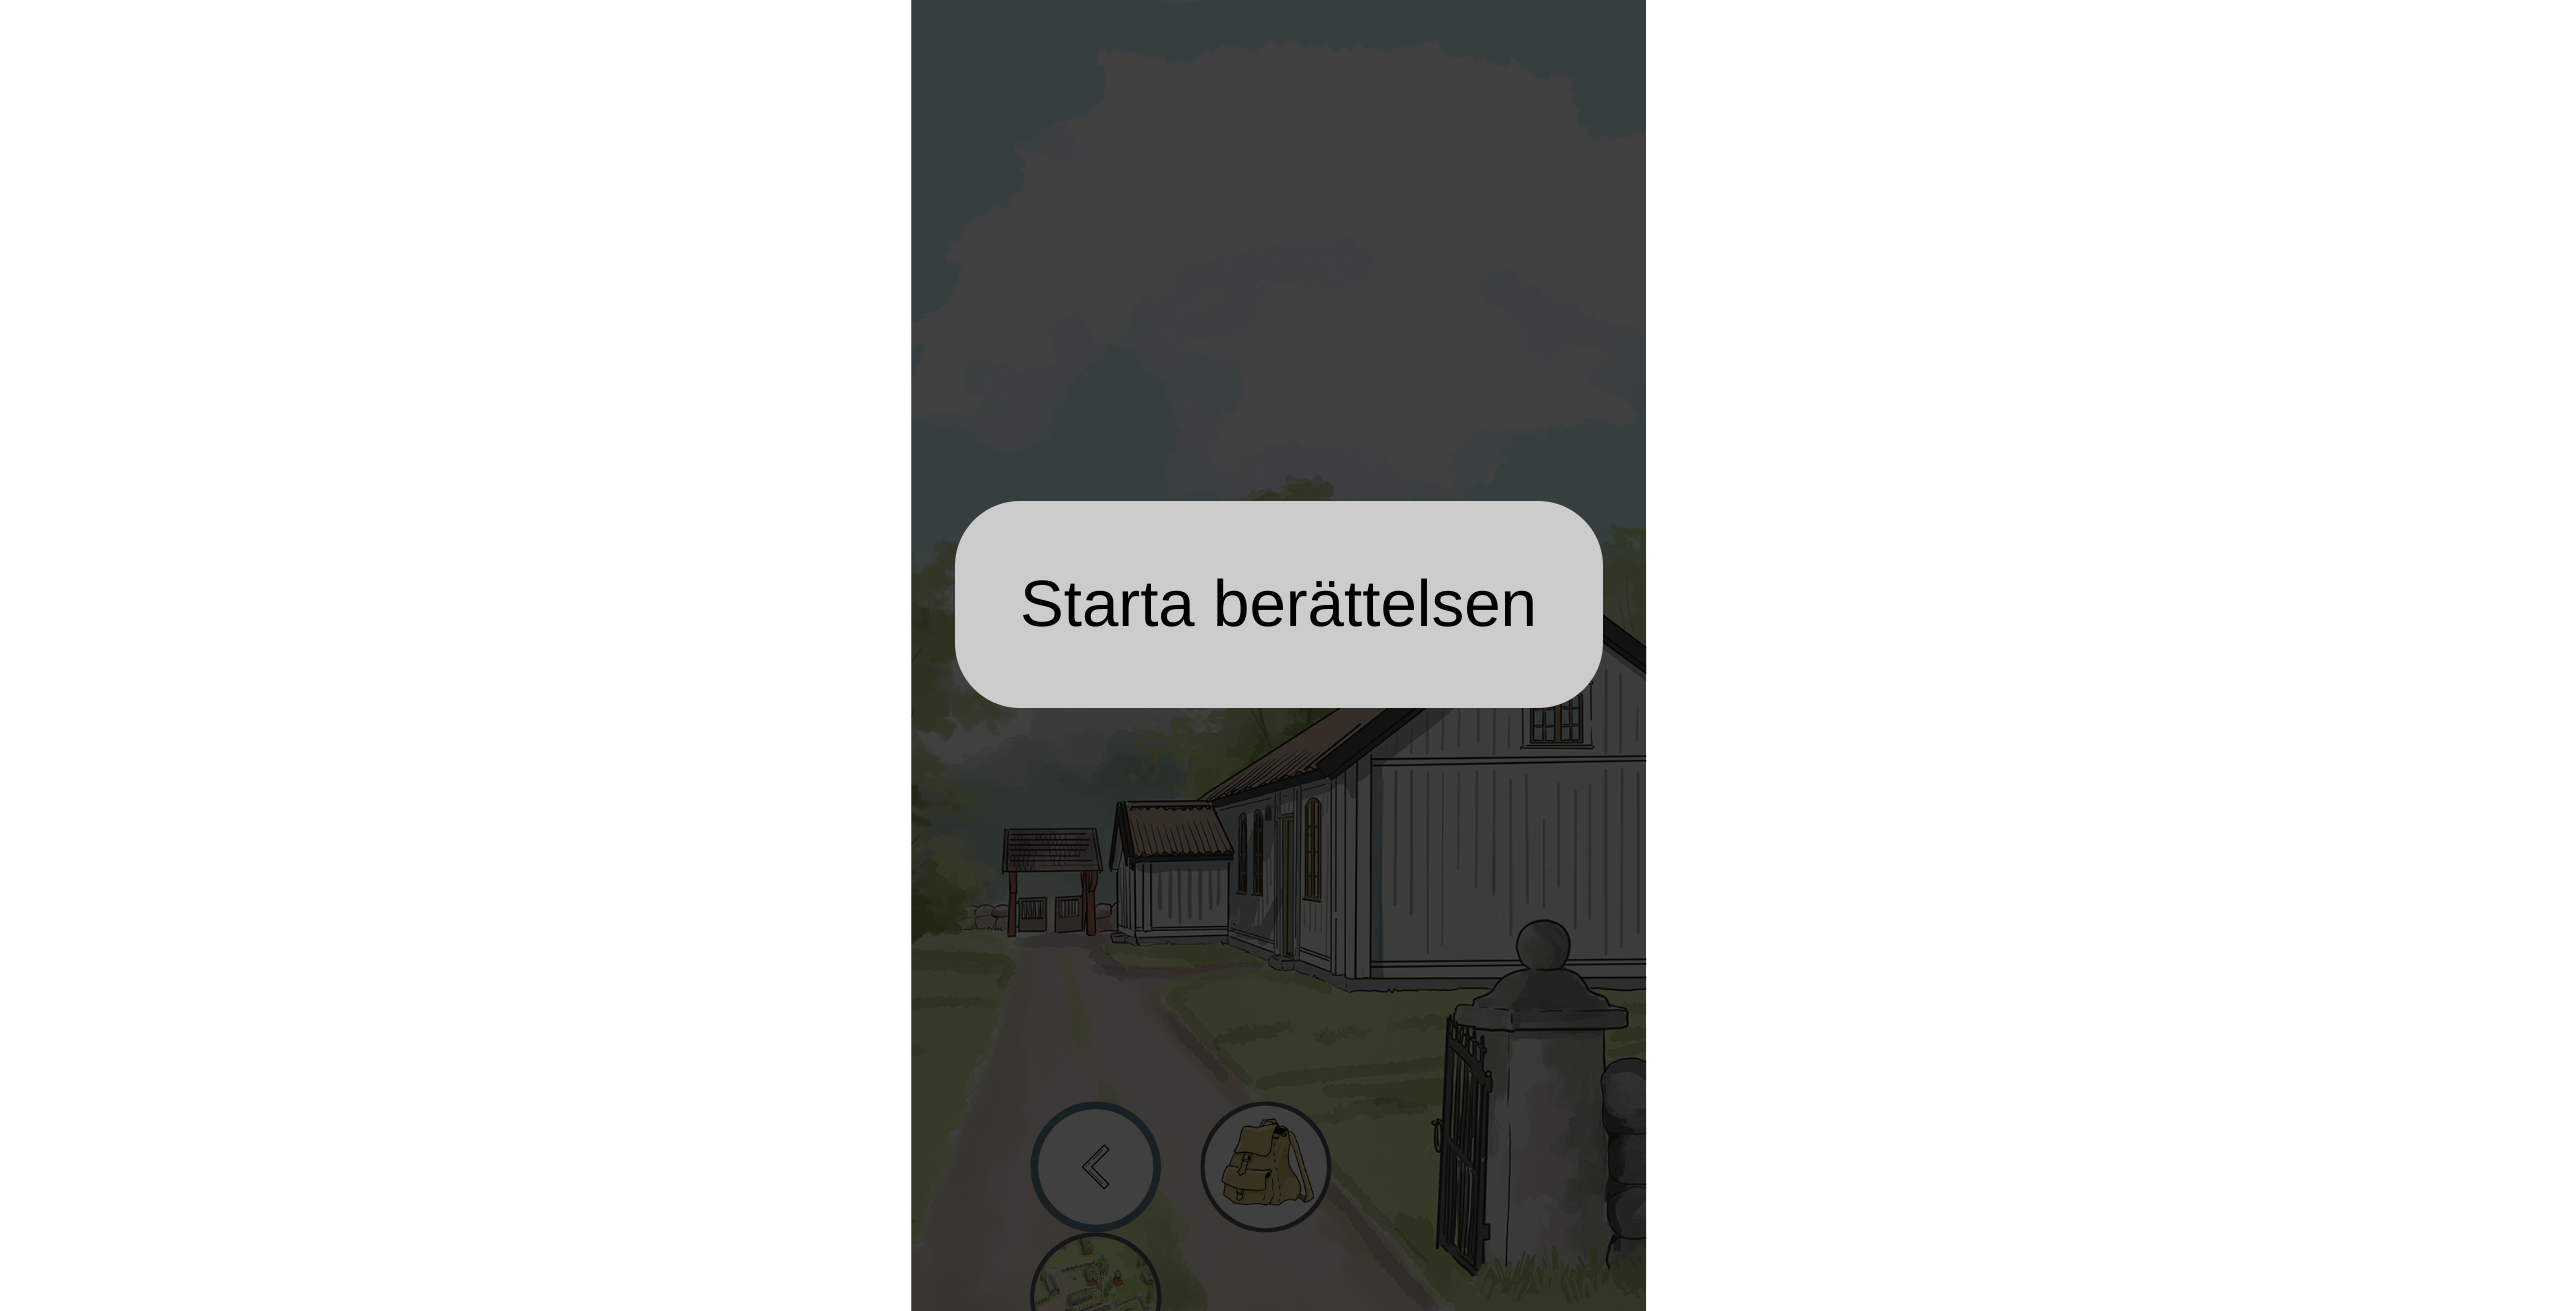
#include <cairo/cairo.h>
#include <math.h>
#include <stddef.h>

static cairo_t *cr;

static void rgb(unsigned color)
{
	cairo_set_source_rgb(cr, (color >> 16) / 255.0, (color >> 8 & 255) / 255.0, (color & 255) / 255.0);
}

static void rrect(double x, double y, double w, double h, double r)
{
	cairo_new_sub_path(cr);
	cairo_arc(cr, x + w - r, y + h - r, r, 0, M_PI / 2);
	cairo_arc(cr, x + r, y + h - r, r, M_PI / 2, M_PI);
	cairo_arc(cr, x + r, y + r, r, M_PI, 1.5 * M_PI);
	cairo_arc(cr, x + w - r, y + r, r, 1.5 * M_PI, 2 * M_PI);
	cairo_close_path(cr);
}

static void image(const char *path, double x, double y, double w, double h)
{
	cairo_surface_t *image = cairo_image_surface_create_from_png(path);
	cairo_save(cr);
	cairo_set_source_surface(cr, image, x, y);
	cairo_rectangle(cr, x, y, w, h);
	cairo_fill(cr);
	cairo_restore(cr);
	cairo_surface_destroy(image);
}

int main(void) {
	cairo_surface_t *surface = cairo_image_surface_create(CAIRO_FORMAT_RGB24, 2557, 1311);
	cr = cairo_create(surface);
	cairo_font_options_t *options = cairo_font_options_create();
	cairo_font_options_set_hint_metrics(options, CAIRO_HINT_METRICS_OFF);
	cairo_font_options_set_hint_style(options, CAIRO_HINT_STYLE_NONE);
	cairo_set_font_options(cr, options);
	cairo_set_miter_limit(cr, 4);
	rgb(0xffffff);
	cairo_paint(cr);
	image("img/1.png", 911, 0, 736, 1311);
	rgb(0xcccccc);
	rrect(955, 501, 648, 207, 65);
	cairo_fill(cr);
	image("img/2.png", 1030, 1101, 132, 132);
	image("img/3.png", 1200, 1101, 132, 132);
	image("img/4.png", 1030, 1232, 132, 79);
	cairo_select_font_face(cr, "Liberation Sans", CAIRO_FONT_SLANT_NORMAL, CAIRO_FONT_WEIGHT_NORMAL);
	cairo_set_font_size(cr, 65.5);
	rgb(0x000000);
	cairo_move_to(cr, 1020, 626);
	cairo_show_text(cr, "Starta berättelsen");
	cairo_surface_write_to_png(surface, "page.png");
	cairo_font_options_destroy(options);
	cairo_destroy(cr);
	cairo_surface_destroy(surface);
	return 0;
}
